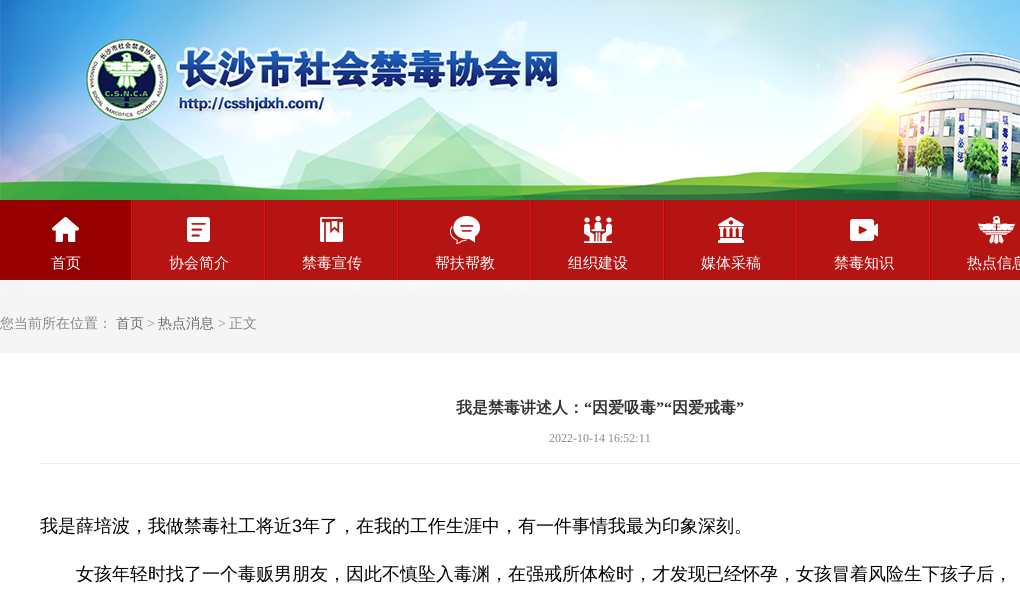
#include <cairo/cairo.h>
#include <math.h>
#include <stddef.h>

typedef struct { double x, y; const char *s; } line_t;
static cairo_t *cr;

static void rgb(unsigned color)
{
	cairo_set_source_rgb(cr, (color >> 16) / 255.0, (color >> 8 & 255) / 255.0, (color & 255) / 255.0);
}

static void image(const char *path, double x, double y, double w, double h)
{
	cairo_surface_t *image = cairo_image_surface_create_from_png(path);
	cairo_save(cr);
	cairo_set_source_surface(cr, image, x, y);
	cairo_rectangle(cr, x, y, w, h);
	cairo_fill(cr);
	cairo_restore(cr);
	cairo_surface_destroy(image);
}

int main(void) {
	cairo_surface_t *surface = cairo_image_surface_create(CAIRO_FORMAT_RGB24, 1020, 604);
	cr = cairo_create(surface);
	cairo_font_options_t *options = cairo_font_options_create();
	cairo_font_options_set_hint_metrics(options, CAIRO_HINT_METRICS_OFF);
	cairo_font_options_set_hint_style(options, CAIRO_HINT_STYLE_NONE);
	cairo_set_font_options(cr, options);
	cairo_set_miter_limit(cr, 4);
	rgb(0xf5f5f5);
	cairo_paint(cr);
	image("img/1.png", 0, 280, 1020, 10);
	image("img/2.png", 0, 0, 1020, 200);
	rgb(0xb61412);
	cairo_rectangle(cr, 133, 200, 887, 80);
	cairo_fill(cr);
	image("img/3.png", 131, 200, 2, 80);
	rgb(0x960001);
	cairo_rectangle(cr, 0, 200, 131, 80);
	cairo_fill(cr);
	image("img/4.png", 52, 217, 27, 25);
	image("img/3.png", 264, 200, 2, 80);
	image("img/5.png", 187, 217, 23, 25);
	image("img/3.png", 397, 200, 2, 80);
	image("img/6.png", 320, 217, 23, 25);
	image("img/3.png", 530, 200, 2, 80);
	image("img/7.png", 450, 216, 30, 28);
	image("img/3.png", 663, 200, 2, 80);
	image("img/8.png", 584, 216, 28, 27);
	image("img/3.png", 796, 200, 2, 80);
	image("img/9.png", 718, 217, 26, 26);
	image("img/3.png", 929, 200, 2, 80);
	image("img/10.png", 850, 219, 28, 22);
	image("img/11.png", 978, 216, 37, 28);
	rgb(0xffffff);
	cairo_rectangle(cr, 0, 353, 1020, 251);
	cairo_fill(cr);
	rgb(0xededed);
	cairo_rectangle(cr, 40, 463, 980, 1);
	cairo_fill(cr);
	cairo_select_font_face(cr, "WenQuanYi Zen Hei Medium", CAIRO_FONT_SLANT_NORMAL, CAIRO_FONT_WEIGHT_NORMAL);
	cairo_set_font_size(cr, 15);
	rgb(0xffffff);
	{
		static const line_t items[] = {
			{51, 268, "首页"},
			{169, 268, "协会简介"},
			{302, 268, "禁毒宣传"},
			{435, 268, "帮扶帮教"},
			{568, 268, "组织建设"},
			{701, 268, "媒体采稿"},
			{834, 268, "禁毒知识"},
			{967, 268, "热点信息"},
		};
		for (size_t i = 0; i < sizeof items / sizeof *items; i++) {
			cairo_move_to(cr, items[i].x, items[i].y);
			cairo_show_text(cr, items[i].s);
		}
	}
	cairo_set_font_size(cr, 14);
	rgb(0x888888);
	cairo_move_to(cr, 0, 328);
	cairo_show_text(cr, "您当前所在位置：");
	rgb(0x6e6e6e);
	cairo_move_to(cr, 116, 328);
	cairo_show_text(cr, "首页");
	cairo_select_font_face(cr, "Liberation Serif", CAIRO_FONT_SLANT_NORMAL, CAIRO_FONT_WEIGHT_NORMAL);
	rgb(0x888888);
	cairo_move_to(cr, 147, 328);
	cairo_show_text(cr, ">");
	cairo_select_font_face(cr, "WenQuanYi Zen Hei Medium", CAIRO_FONT_SLANT_NORMAL, CAIRO_FONT_WEIGHT_NORMAL);
	rgb(0x6e6e6e);
	cairo_move_to(cr, 158, 328);
	cairo_show_text(cr, "热点消息");
	cairo_select_font_face(cr, "Liberation Serif", CAIRO_FONT_SLANT_NORMAL, CAIRO_FONT_WEIGHT_NORMAL);
	rgb(0x888888);
	cairo_move_to(cr, 218, 328);
	cairo_show_text(cr, ">");
	cairo_select_font_face(cr, "WenQuanYi Zen Hei Medium", CAIRO_FONT_SLANT_NORMAL, CAIRO_FONT_WEIGHT_NORMAL);
	cairo_move_to(cr, 229, 328);
	cairo_show_text(cr, "正文");
	cairo_select_font_face(cr, "WenQuanYi Zen Hei", CAIRO_FONT_SLANT_NORMAL, CAIRO_FONT_WEIGHT_BOLD);
	cairo_set_font_size(cr, 16);
	rgb(0x333333);
	cairo_move_to(cr, 456, 413);
	cairo_show_text(cr, "我是禁毒讲述人：");
	cairo_select_font_face(cr, "Liberation Serif", CAIRO_FONT_SLANT_NORMAL, CAIRO_FONT_WEIGHT_BOLD);
	cairo_move_to(cr, 584, 413);
	cairo_show_text(cr, "“");
	cairo_select_font_face(cr, "WenQuanYi Zen Hei", CAIRO_FONT_SLANT_NORMAL, CAIRO_FONT_WEIGHT_BOLD);
	cairo_move_to(cr, 592, 413);
	cairo_show_text(cr, "因爱吸毒");
	cairo_select_font_face(cr, "Liberation Serif", CAIRO_FONT_SLANT_NORMAL, CAIRO_FONT_WEIGHT_BOLD);
	cairo_move_to(cr, 656, 413);
	cairo_show_text(cr, "”“");
	cairo_select_font_face(cr, "WenQuanYi Zen Hei", CAIRO_FONT_SLANT_NORMAL, CAIRO_FONT_WEIGHT_BOLD);
	cairo_move_to(cr, 672, 413);
	cairo_show_text(cr, "因爱戒毒");
	cairo_select_font_face(cr, "Liberation Serif", CAIRO_FONT_SLANT_NORMAL, CAIRO_FONT_WEIGHT_BOLD);
	cairo_move_to(cr, 736, 413);
	cairo_show_text(cr, "”");
	cairo_select_font_face(cr, "Liberation Serif", CAIRO_FONT_SLANT_NORMAL, CAIRO_FONT_WEIGHT_NORMAL);
	cairo_set_font_size(cr, 12);
	rgb(0x888888);
	cairo_move_to(cr, 549, 442);
	cairo_show_text(cr, "2022-10-14 16:52:11");
	cairo_select_font_face(cr, "WenQuanYi Zen Hei Medium", CAIRO_FONT_SLANT_NORMAL, CAIRO_FONT_WEIGHT_NORMAL);
	cairo_set_font_size(cr, 18);
	rgb(0x000000);
	cairo_move_to(cr, 40, 532);
	cairo_show_text(cr, "我是薛培波，我做禁毒社工将近");
	cairo_select_font_face(cr, "Liberation Sans", CAIRO_FONT_SLANT_NORMAL, CAIRO_FONT_WEIGHT_NORMAL);
	cairo_move_to(cr, 292, 532);
	cairo_show_text(cr, "3");
	cairo_select_font_face(cr, "WenQuanYi Zen Hei Medium", CAIRO_FONT_SLANT_NORMAL, CAIRO_FONT_WEIGHT_NORMAL);
	cairo_move_to(cr, 302, 532);
	cairo_show_text(cr, "年了，在我的工作生涯中，有一件事情我最为印象深刻。");
	cairo_move_to(cr, 76, 580);
	cairo_show_text(cr, "女孩年轻时找了一个毒贩男朋友，因此不慎坠入毒渊，在强戒所体检时，才发现已经怀孕，女孩冒着风险生下孩子后，");
	cairo_surface_write_to_png(surface, "page.png");
	cairo_font_options_destroy(options);
	cairo_destroy(cr);
	cairo_surface_destroy(surface);
	return 0;
}
